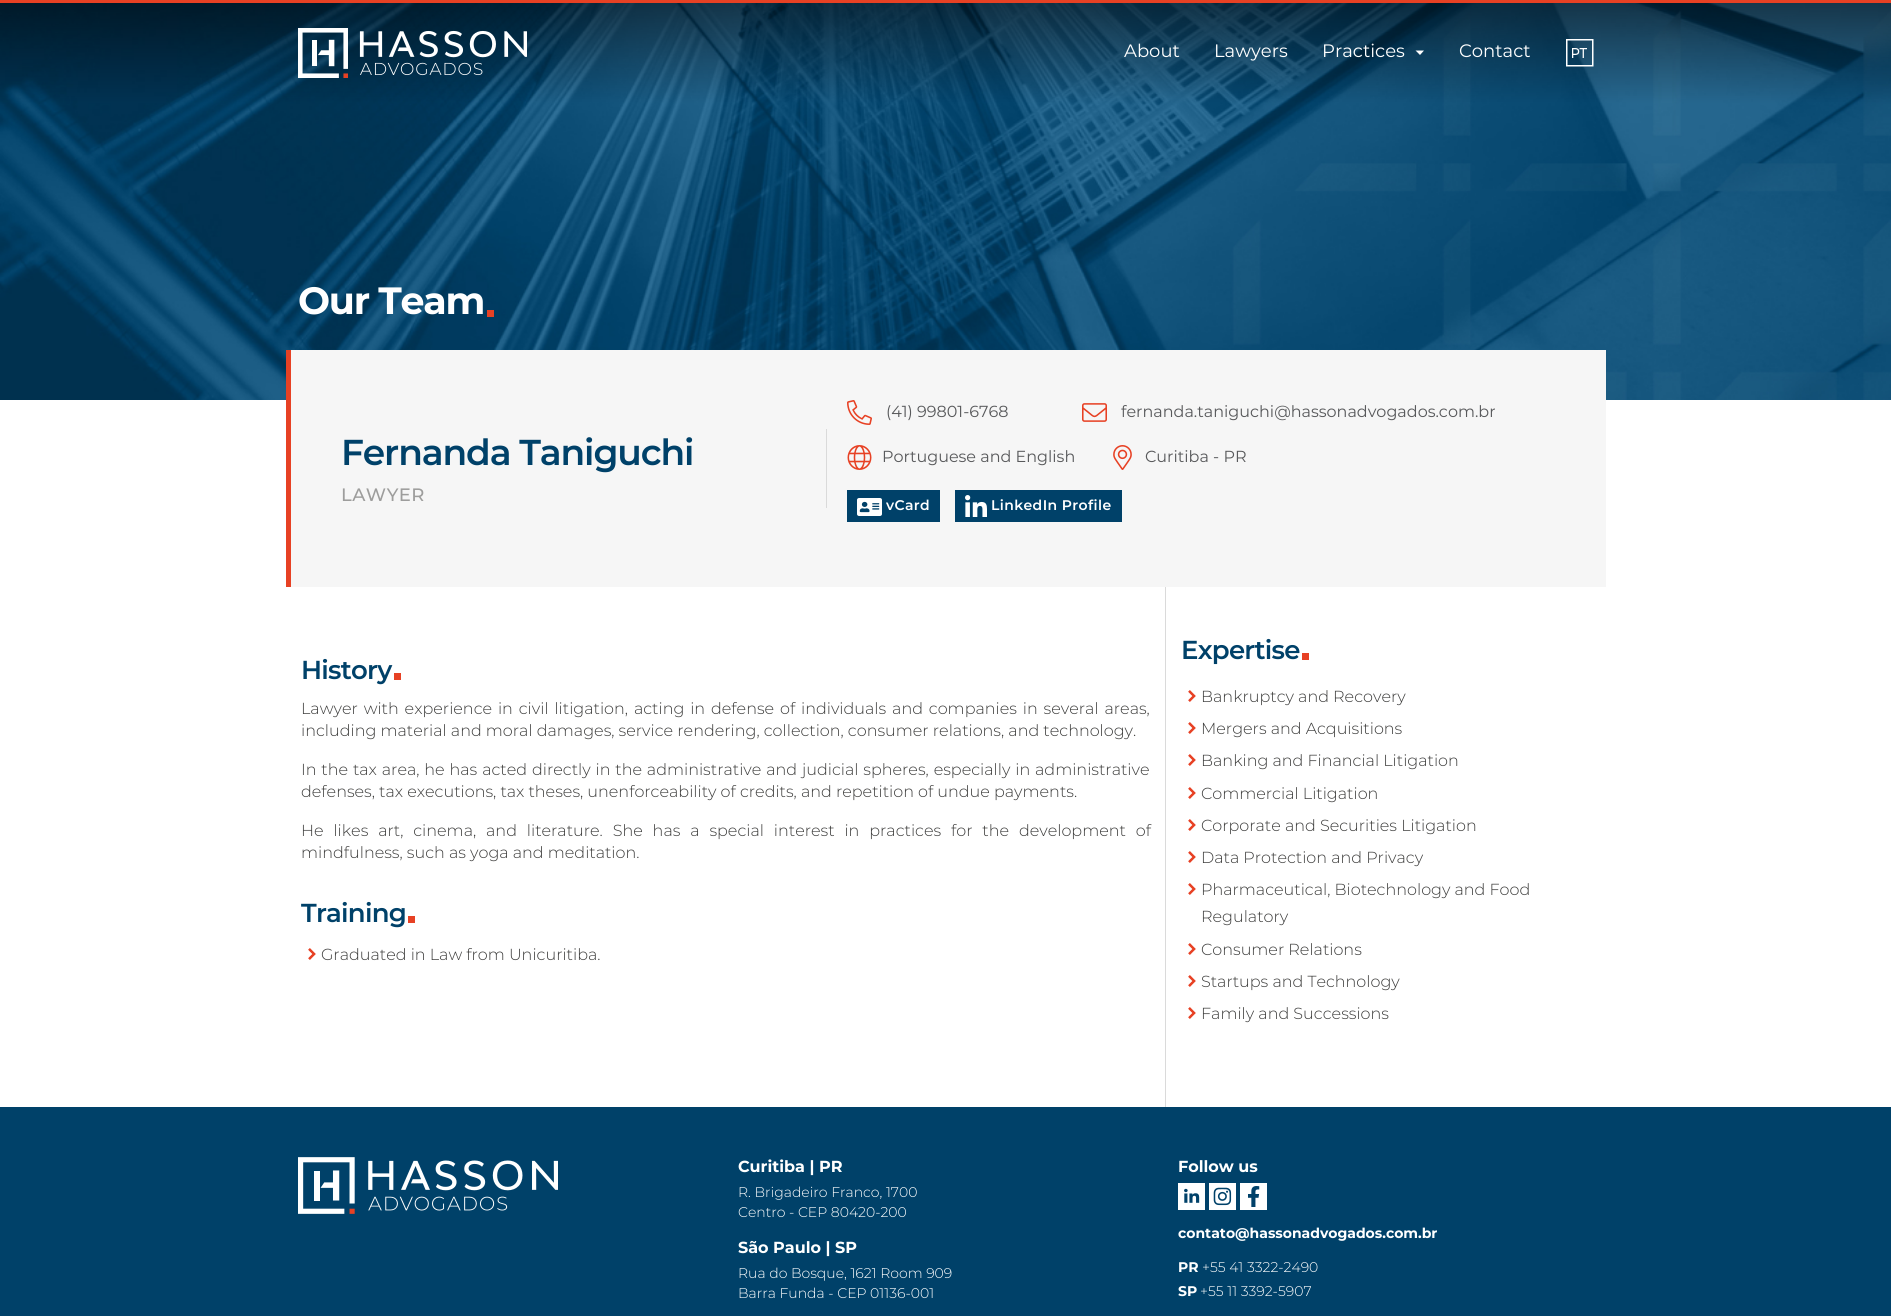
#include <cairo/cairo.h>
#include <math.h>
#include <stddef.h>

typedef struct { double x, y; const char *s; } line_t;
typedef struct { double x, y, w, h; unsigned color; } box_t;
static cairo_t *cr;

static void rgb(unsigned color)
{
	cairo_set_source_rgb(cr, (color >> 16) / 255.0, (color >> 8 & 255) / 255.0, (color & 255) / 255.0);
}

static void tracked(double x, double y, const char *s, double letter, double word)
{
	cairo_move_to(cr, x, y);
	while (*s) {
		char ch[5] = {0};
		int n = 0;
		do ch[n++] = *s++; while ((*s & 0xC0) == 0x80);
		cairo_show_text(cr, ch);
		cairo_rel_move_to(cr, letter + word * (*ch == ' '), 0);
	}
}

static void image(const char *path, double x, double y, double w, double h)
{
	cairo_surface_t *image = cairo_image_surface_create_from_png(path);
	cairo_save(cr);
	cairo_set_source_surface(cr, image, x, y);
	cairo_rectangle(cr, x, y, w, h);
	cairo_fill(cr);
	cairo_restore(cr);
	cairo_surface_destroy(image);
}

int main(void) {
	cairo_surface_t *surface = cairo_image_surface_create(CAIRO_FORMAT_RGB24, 1891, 1316);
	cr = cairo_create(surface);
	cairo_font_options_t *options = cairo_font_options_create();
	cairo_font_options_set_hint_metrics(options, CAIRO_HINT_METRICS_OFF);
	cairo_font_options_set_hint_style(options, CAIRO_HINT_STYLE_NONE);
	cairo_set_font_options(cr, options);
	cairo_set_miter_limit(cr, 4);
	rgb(0xffffff);
	cairo_paint(cr);
	rgb(0xe74124);
	cairo_rectangle(cr, 0, 0, 1891, 3);
	cairo_fill(cr);
	image("img/3.png", 0, 3, 1891, 397);
	image("img/1.png", 298, 28, 229, 50);
	rgb(0xffffff);
	cairo_new_path(cr);
	cairo_move_to(cr, 1420, 55);
	cairo_line_to(cr, 1415.5, 50.5);
	cairo_line_to(cr, 1424, 50.5);
	cairo_close_path(cr);
	cairo_fill(cr);
	image("img/2.png", 1566, 39, 28, 28);
	{
		static const box_t items[] = {
			{487, 310, 7, 7, 0xe74124},
			{291, 350, 1315, 237, 0xf6f6f6},
			{286, 350, 5, 237, 0xe74124},
			{826, 429, 1, 79, 0xdadada},
		};
		for (size_t i = 0; i < sizeof items / sizeof *items; i++) {
			rgb(items[i].color);
			cairo_rectangle(cr, items[i].x, items[i].y, items[i].w, items[i].h);
			cairo_fill(cr);
		}
	}
	image("img/4.png", 847, 400, 25, 25);
	image("img/5.png", 1082, 403, 25, 19);
	image("img/6.png", 847, 445, 25, 25);
	image("img/7.png", 1113, 445, 19, 25);
	rgb(0x004169);
	cairo_rectangle(cr, 847, 490, 93, 32);
	cairo_fill(cr);
	image("img/8.png", 857, 498, 25, 18);
	cairo_rectangle(cr, 955, 490, 167, 32);
	cairo_fill(cr);
	image("img/9.png", 965, 495, 22, 22);
	{
		static const box_t items[] = {
			{1165, 587, 1, 520, 0xdadada},
			{394, 673, 7, 7, 0xe74124},
			{408, 916, 7, 7, 0xe74124},
		};
		for (size_t i = 0; i < sizeof items / sizeof *items; i++) {
			rgb(items[i].color);
			cairo_rectangle(cr, items[i].x, items[i].y, items[i].w, items[i].h);
			cairo_fill(cr);
		}
	}
	image("img/10.png", 308, 948, 8, 12);
	cairo_rectangle(cr, 1302, 653, 7, 7);
	cairo_fill(cr);
	image("img/11.png", 1188, 690, 8, 12);
	image("img/11.png", 1188, 722, 8, 12);
	image("img/11.png", 1188, 754, 8, 12);
	image("img/11.png", 1188, 787, 8, 12);
	image("img/11.png", 1188, 819, 8, 12);
	image("img/11.png", 1188, 851, 8, 12);
	image("img/11.png", 1188, 883, 8, 12);
	image("img/11.png", 1188, 943, 8, 12);
	image("img/11.png", 1188, 975, 8, 12);
	image("img/11.png", 1188, 1007, 8, 12);
	rgb(0x004169);
	cairo_rectangle(cr, 0, 1107, 1891, 209);
	cairo_fill(cr);
	image("img/12.png", 298, 1157, 260, 57);
	image("img/13.png", 1178, 1183, 27, 27);
	image("img/14.png", 1209, 1183, 27, 27);
	image("img/15.png", 1240, 1183, 27, 27);
	cairo_select_font_face(cr, "Montserrat", CAIRO_FONT_SLANT_NORMAL, CAIRO_FONT_WEIGHT_NORMAL);
	cairo_set_font_size(cr, 18);
	rgb(0xffffff);
	{
		static const line_t items[] = {
			{1124, 57, "About"},
			{1214, 57, "Lawyers"},
			{1322, 57, "Practices"},
			{1459, 57, "Contact"},
		};
		for (size_t i = 0; i < sizeof items / sizeof *items; i++) {
			cairo_move_to(cr, items[i].x, items[i].y);
			cairo_show_text(cr, items[i].s);
		}
	}
	cairo_select_font_face(cr, "Montserrat", CAIRO_FONT_SLANT_NORMAL, CAIRO_FONT_WEIGHT_BOLD);
	cairo_set_font_size(cr, 38);
	tracked(298, 314, "Our Team", -1.25, 0);
	cairo_select_font_face(cr, "Montserrat SemiBold", CAIRO_FONT_SLANT_NORMAL, CAIRO_FONT_WEIGHT_NORMAL);
	cairo_set_font_size(cr, 36);
	rgb(0x004169);
	tracked(341, 465, "Fernanda Taniguchi", -1.1, 0);
	cairo_select_font_face(cr, "Montserrat Medium", CAIRO_FONT_SLANT_NORMAL, CAIRO_FONT_WEIGHT_NORMAL);
	cairo_set_font_size(cr, 18);
	rgb(0x9d9d9c);
	tracked(341, 501, "LAWYER", 0.5, 0);
	cairo_select_font_face(cr, "Montserrat", CAIRO_FONT_SLANT_NORMAL, CAIRO_FONT_WEIGHT_NORMAL);
	cairo_set_font_size(cr, 16);
	rgb(0x58595b);
	{
		static const line_t items[] = {
			{886, 417, "(41) 99801-6768"},
			{1121, 417, "fernanda.taniguchi@hassonadvogados.com.br"},
			{882, 462, "Portuguese and English"},
			{1145, 462, "Curitiba - PR"},
		};
		for (size_t i = 0; i < sizeof items / sizeof *items; i++) {
			cairo_move_to(cr, items[i].x, items[i].y);
			cairo_show_text(cr, items[i].s);
		}
	}
	cairo_select_font_face(cr, "Montserrat SemiBold", CAIRO_FONT_SLANT_NORMAL, CAIRO_FONT_WEIGHT_NORMAL);
	cairo_set_font_size(cr, 14);
	rgb(0xffffff);
	tracked(886, 510, "vCard", 0.4, 0);
	tracked(991, 510, "LinkedIn Profile", 0.4, 0);
	cairo_set_font_size(cr, 26);
	rgb(0x004169);
	tracked(301, 679, "History", -0.75, 0);
	cairo_select_font_face(cr, "Montserrat Light", CAIRO_FONT_SLANT_NORMAL, CAIRO_FONT_WEIGHT_NORMAL);
	cairo_set_font_size(cr, 16);
	rgb(0x3c3c3b);
	tracked(301, 714, "Lawyer with experience in civil litigation, acting in defense of individuals and companies in several areas,", 0, 1.75);
	cairo_move_to(cr, 301, 736);
	cairo_show_text(cr, "including material and moral damages, service rendering, collection, consumer relations, and technology.");
	tracked(301, 775, "In the tax area, he has acted directly in the administrative and judicial spheres, especially in administrative", 0, 0.75);
	cairo_move_to(cr, 301, 797);
	cairo_show_text(cr, "defenses, tax executions, tax theses, unenforceability of credits, and repetition of undue payments.");
	tracked(301, 836, "He likes art, cinema, and literature. She has a special interest in practices for the development of", 0, 5.75);
	cairo_move_to(cr, 301, 858);
	cairo_show_text(cr, "mindfulness, such as yoga and meditation.");
	cairo_select_font_face(cr, "Montserrat SemiBold", CAIRO_FONT_SLANT_NORMAL, CAIRO_FONT_WEIGHT_NORMAL);
	cairo_set_font_size(cr, 26);
	rgb(0x004169);
	tracked(301, 922, "Training", -0.75, 0);
	cairo_select_font_face(cr, "Montserrat Light", CAIRO_FONT_SLANT_NORMAL, CAIRO_FONT_WEIGHT_NORMAL);
	cairo_set_font_size(cr, 16);
	rgb(0x3c3c3b);
	cairo_move_to(cr, 321, 960);
	cairo_show_text(cr, "Graduated in Law from Unicuritiba.");
	cairo_select_font_face(cr, "Montserrat SemiBold", CAIRO_FONT_SLANT_NORMAL, CAIRO_FONT_WEIGHT_NORMAL);
	cairo_set_font_size(cr, 26);
	rgb(0x004169);
	tracked(1181, 659, "Expertise", -0.75, 0);
	cairo_select_font_face(cr, "Montserrat Light", CAIRO_FONT_SLANT_NORMAL, CAIRO_FONT_WEIGHT_NORMAL);
	cairo_set_font_size(cr, 16);
	rgb(0x3c3c3b);
	{
		static const line_t items[] = {
			{1201, 702, "Bankruptcy and Recovery"},
			{1201, 734, "Mergers and Acquisitions"},
			{1201, 766, "Banking and Financial Litigation"},
			{1201, 799, "Commercial Litigation"},
			{1201, 831, "Corporate and Securities Litigation"},
			{1201, 863, "Data Protection and Privacy"},
			{1201, 895, "Pharmaceutical, Biotechnology and Food"},
			{1201, 922, "Regulatory"},
			{1201, 955, "Consumer Relations"},
			{1201, 987, "Startups and Technology"},
			{1201, 1019, "Family and Successions"},
		};
		for (size_t i = 0; i < sizeof items / sizeof *items; i++) {
			cairo_move_to(cr, items[i].x, items[i].y);
			cairo_show_text(cr, items[i].s);
		}
	}
	cairo_select_font_face(cr, "Montserrat", CAIRO_FONT_SLANT_NORMAL, CAIRO_FONT_WEIGHT_BOLD);
	rgb(0xffffff);
	cairo_move_to(cr, 738, 1172);
	cairo_show_text(cr, "Curitiba | PR");
	cairo_select_font_face(cr, "Montserrat Light", CAIRO_FONT_SLANT_NORMAL, CAIRO_FONT_WEIGHT_NORMAL);
	cairo_set_font_size(cr, 14);
	cairo_move_to(cr, 738, 1197);
	cairo_show_text(cr, "R. Brigadeiro Franco, 1700");
	cairo_move_to(cr, 738, 1217);
	cairo_show_text(cr, "Centro - CEP 80420-200");
	cairo_select_font_face(cr, "Montserrat", CAIRO_FONT_SLANT_NORMAL, CAIRO_FONT_WEIGHT_BOLD);
	cairo_set_font_size(cr, 16);
	cairo_move_to(cr, 738, 1253);
	cairo_show_text(cr, "São Paulo | SP");
	cairo_select_font_face(cr, "Montserrat Light", CAIRO_FONT_SLANT_NORMAL, CAIRO_FONT_WEIGHT_NORMAL);
	cairo_set_font_size(cr, 14);
	cairo_move_to(cr, 738, 1278);
	cairo_show_text(cr, "Rua do Bosque, 1621 Room 909");
	cairo_move_to(cr, 738, 1298);
	cairo_show_text(cr, "Barra Funda - CEP 01136-001");
	cairo_select_font_face(cr, "Montserrat", CAIRO_FONT_SLANT_NORMAL, CAIRO_FONT_WEIGHT_BOLD);
	cairo_set_font_size(cr, 16);
	cairo_move_to(cr, 1178, 1172);
	cairo_show_text(cr, "Follow us");
	cairo_set_font_size(cr, 14);
	cairo_move_to(cr, 1178, 1238);
	cairo_show_text(cr, "contato@hassonadvogados.com.br");
	cairo_move_to(cr, 1178, 1272);
	cairo_show_text(cr, "PR");
	cairo_select_font_face(cr, "Montserrat Light", CAIRO_FONT_SLANT_NORMAL, CAIRO_FONT_WEIGHT_NORMAL);
	cairo_move_to(cr, 1202, 1272);
	cairo_show_text(cr, "+55 41 3322-2490");
	cairo_select_font_face(cr, "Montserrat", CAIRO_FONT_SLANT_NORMAL, CAIRO_FONT_WEIGHT_BOLD);
	cairo_move_to(cr, 1178, 1296);
	cairo_show_text(cr, "SP");
	cairo_select_font_face(cr, "Montserrat Light", CAIRO_FONT_SLANT_NORMAL, CAIRO_FONT_WEIGHT_NORMAL);
	cairo_move_to(cr, 1200, 1296);
	cairo_show_text(cr, "+55 11 3392-5907");
	cairo_surface_write_to_png(surface, "page.png");
	cairo_font_options_destroy(options);
	cairo_destroy(cr);
	cairo_surface_destroy(surface);
	return 0;
}
